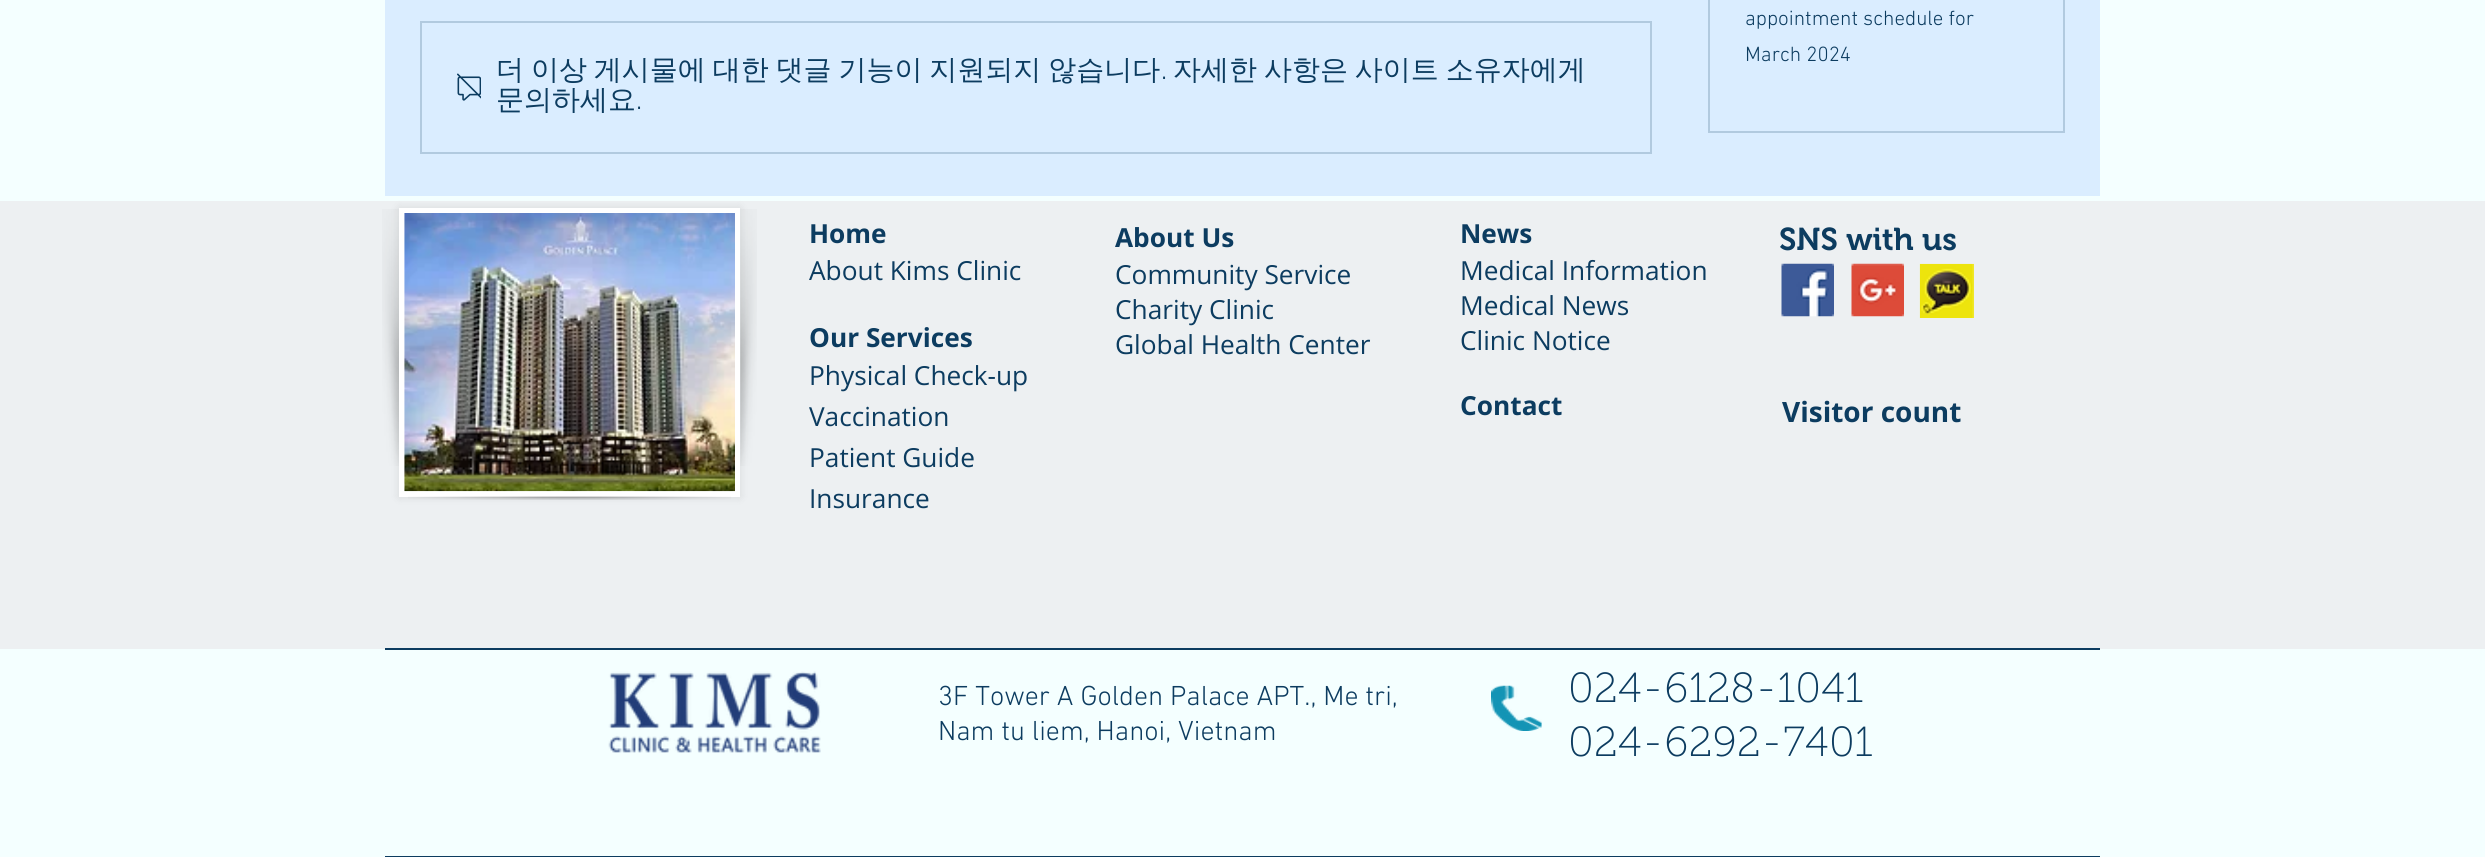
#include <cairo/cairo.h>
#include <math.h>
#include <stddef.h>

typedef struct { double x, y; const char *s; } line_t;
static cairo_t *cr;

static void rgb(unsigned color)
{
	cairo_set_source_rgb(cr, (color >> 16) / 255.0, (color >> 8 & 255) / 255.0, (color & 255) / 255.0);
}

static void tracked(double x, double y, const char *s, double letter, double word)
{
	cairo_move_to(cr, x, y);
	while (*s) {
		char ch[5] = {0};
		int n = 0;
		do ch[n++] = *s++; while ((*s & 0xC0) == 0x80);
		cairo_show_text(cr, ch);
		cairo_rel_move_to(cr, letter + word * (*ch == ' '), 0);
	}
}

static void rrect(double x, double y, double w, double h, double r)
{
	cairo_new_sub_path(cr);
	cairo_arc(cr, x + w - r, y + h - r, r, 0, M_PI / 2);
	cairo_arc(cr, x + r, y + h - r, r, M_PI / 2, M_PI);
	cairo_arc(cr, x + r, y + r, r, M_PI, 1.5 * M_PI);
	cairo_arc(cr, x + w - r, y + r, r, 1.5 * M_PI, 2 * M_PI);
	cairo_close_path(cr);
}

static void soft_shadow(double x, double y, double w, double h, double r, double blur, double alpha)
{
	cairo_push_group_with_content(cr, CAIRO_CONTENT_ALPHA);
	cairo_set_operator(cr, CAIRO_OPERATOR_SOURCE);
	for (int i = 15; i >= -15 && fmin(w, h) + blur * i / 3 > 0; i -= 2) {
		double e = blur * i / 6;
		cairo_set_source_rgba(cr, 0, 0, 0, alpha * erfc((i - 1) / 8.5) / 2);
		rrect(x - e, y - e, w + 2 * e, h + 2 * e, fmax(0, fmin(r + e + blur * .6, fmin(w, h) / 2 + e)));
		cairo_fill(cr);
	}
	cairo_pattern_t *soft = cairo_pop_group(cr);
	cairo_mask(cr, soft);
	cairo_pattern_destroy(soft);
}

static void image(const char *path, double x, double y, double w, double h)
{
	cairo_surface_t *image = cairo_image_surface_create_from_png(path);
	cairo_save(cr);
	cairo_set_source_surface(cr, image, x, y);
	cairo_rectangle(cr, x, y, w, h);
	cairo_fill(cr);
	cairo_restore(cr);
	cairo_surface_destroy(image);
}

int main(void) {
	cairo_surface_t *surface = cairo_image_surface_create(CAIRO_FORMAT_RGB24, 2485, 857);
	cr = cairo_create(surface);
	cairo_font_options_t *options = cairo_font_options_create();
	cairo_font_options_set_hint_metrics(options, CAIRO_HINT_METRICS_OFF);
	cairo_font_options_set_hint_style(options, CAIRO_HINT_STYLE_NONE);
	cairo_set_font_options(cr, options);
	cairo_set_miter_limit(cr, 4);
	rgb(0xf4ffff);
	cairo_paint(cr);
	rgb(0xdaedff);
	cairo_rectangle(cr, 385, 0, 1715, 196);
	cairo_fill(cr);
	cairo_rectangle(cr, 1709, -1, 355, 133);
	rgb(0xb1cadf);
	cairo_stroke(cr);
	cairo_rectangle(cr, 421, 22, 1230, 131);
	cairo_stroke(cr);
	image("img/1.png", 457, 73, 24, 28);
	rgb(0xedf0f2);
	cairo_rectangle(cr, 0, 201, 2485, 448);
	cairo_fill(cr);
	rgb(0x000000);
	soft_shadow(399, 208, 341, 289, 0, 4.5, 0.1);
	rgb(0xffffff);
	cairo_rectangle(cr, 399, 208, 341, 289);
	cairo_fill(cr);
	image("img/2.png", 404, 213, 331, 279);
	image("img/3.png", 408, 496, 323, 4);
	image("img/4.png", 382, 209, 17, 257);
	image("img/5.png", 740, 209, 17, 257);
	image("img/6.png", 1781, 263, 53, 54);
	image("img/7.png", 1851, 263, 53, 54);
	image("img/8.png", 1919, 263, 55, 55);
	rgb(0x0c3c60);
	cairo_rectangle(cr, 385, 648, 1715, 2);
	cairo_fill(cr);
	image("img/9.png", 608, 671, 213, 82);
	image("img/10.png", 1491, 685, 51, 46);
	cairo_rectangle(cr, 385, 856, 1715, 1);
	cairo_fill(cr);
	cairo_select_font_face(cr, "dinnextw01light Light", CAIRO_FONT_SLANT_NORMAL, CAIRO_FONT_WEIGHT_NORMAL);
	cairo_set_font_size(cr, 21);
	cairo_move_to(cr, 1745, 25);
	cairo_show_text(cr, "appointment schedule for");
	cairo_move_to(cr, 1745, 61);
	cairo_show_text(cr, "March 2024");
	cairo_select_font_face(cr, "WenQuanYi Zen Hei Medium", CAIRO_FONT_SLANT_NORMAL, CAIRO_FONT_WEIGHT_NORMAL);
	cairo_set_font_size(cr, 28);
	tracked(496, 79, "더 이상 게시물에 대한 댓글 기능이 지원되지 않습니다", 0, -1.5);
	cairo_select_font_face(cr, "dinnextw01light Light", CAIRO_FONT_SLANT_NORMAL, CAIRO_FONT_WEIGHT_NORMAL);
	cairo_move_to(cr, 1161, 79);
	cairo_show_text(cr, ".");
	cairo_select_font_face(cr, "WenQuanYi Zen Hei Medium", CAIRO_FONT_SLANT_NORMAL, CAIRO_FONT_WEIGHT_NORMAL);
	tracked(1173, 79, "자세한 사항은 사이트 소유자에게", 0, -1.5);
	cairo_move_to(cr, 496, 109);
	cairo_show_text(cr, "문의하세요");
	cairo_select_font_face(cr, "dinnextw01light Light", CAIRO_FONT_SLANT_NORMAL, CAIRO_FONT_WEIGHT_NORMAL);
	cairo_move_to(cr, 636, 109);
	cairo_show_text(cr, ".");
	cairo_select_font_face(cr, "Open Sans", CAIRO_FONT_SLANT_NORMAL, CAIRO_FONT_WEIGHT_BOLD);
	cairo_set_font_size(cr, 26.25);
	cairo_move_to(cr, 809, 243);
	cairo_show_text(cr, "Home");
	cairo_select_font_face(cr, "Open Sans", CAIRO_FONT_SLANT_NORMAL, CAIRO_FONT_WEIGHT_NORMAL);
	cairo_move_to(cr, 809, 280);
	cairo_show_text(cr, "About Kims Clinic");
	cairo_select_font_face(cr, "Open Sans", CAIRO_FONT_SLANT_NORMAL, CAIRO_FONT_WEIGHT_BOLD);
	cairo_move_to(cr, 809, 347);
	cairo_show_text(cr, "Our Services");
	cairo_select_font_face(cr, "Open Sans", CAIRO_FONT_SLANT_NORMAL, CAIRO_FONT_WEIGHT_NORMAL);
	{
		static const line_t items[] = {
			{809, 385, "Physical Check-up"},
			{809, 426, "Vaccination"},
			{809, 467, "Patient Guide"},
			{809, 508, "Insurance"},
		};
		for (size_t i = 0; i < sizeof items / sizeof *items; i++) {
			cairo_move_to(cr, items[i].x, items[i].y);
			cairo_show_text(cr, items[i].s);
		}
	}
	cairo_select_font_face(cr, "Open Sans", CAIRO_FONT_SLANT_NORMAL, CAIRO_FONT_WEIGHT_BOLD);
	cairo_move_to(cr, 1115, 247);
	cairo_show_text(cr, "About Us");
	cairo_select_font_face(cr, "Open Sans", CAIRO_FONT_SLANT_NORMAL, CAIRO_FONT_WEIGHT_NORMAL);
	{
		static const line_t items[] = {
			{1115, 284, "Community Service"},
			{1115, 319, "Charity Clinic"},
			{1115, 354, "Global Health Center"},
		};
		for (size_t i = 0; i < sizeof items / sizeof *items; i++) {
			cairo_move_to(cr, items[i].x, items[i].y);
			cairo_show_text(cr, items[i].s);
		}
	}
	cairo_select_font_face(cr, "Open Sans", CAIRO_FONT_SLANT_NORMAL, CAIRO_FONT_WEIGHT_BOLD);
	cairo_move_to(cr, 1460, 243);
	cairo_show_text(cr, "News");
	cairo_select_font_face(cr, "Open Sans", CAIRO_FONT_SLANT_NORMAL, CAIRO_FONT_WEIGHT_NORMAL);
	{
		static const line_t items[] = {
			{1460, 280, "Medical Information"},
			{1460, 315, "Medical News"},
			{1460, 350, "Clinic Notice"},
		};
		for (size_t i = 0; i < sizeof items / sizeof *items; i++) {
			cairo_move_to(cr, items[i].x, items[i].y);
			cairo_show_text(cr, items[i].s);
		}
	}
	cairo_select_font_face(cr, "Open Sans", CAIRO_FONT_SLANT_NORMAL, CAIRO_FONT_WEIGHT_BOLD);
	cairo_move_to(cr, 1460, 415);
	cairo_show_text(cr, "Contact");
	cairo_select_font_face(cr, "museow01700 SemiBold", CAIRO_FONT_SLANT_NORMAL, CAIRO_FONT_WEIGHT_NORMAL);
	cairo_set_font_size(cr, 31.5);
	cairo_move_to(cr, 1779, 250);
	cairo_show_text(cr, "SNS with us");
	cairo_select_font_face(cr, "Open Sans", CAIRO_FONT_SLANT_NORMAL, CAIRO_FONT_WEIGHT_BOLD);
	cairo_set_font_size(cr, 28);
	cairo_move_to(cr, 1782, 422);
	cairo_show_text(cr, "Visitor count");
	cairo_select_font_face(cr, "dinnextw01light Light", CAIRO_FONT_SLANT_NORMAL, CAIRO_FONT_WEIGHT_NORMAL);
	cairo_move_to(cr, 938, 705);
	cairo_show_text(cr, "3F Tower A Golden Palace APT., Me tri,");
	cairo_move_to(cr, 938, 740);
	cairo_show_text(cr, "Nam tu liem, Hanoi, Vietnam");
	cairo_select_font_face(cr, "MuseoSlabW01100 Thin", CAIRO_FONT_SLANT_NORMAL, CAIRO_FONT_WEIGHT_NORMAL);
	cairo_set_font_size(cr, 42);
	cairo_move_to(cr, 1568, 702);
	cairo_show_text(cr, "024-6128-1041");
	cairo_move_to(cr, 1568, 756);
	cairo_show_text(cr, "024-6292-7401");
	cairo_surface_write_to_png(surface, "page.png");
	cairo_font_options_destroy(options);
	cairo_destroy(cr);
	cairo_surface_destroy(surface);
	return 0;
}
